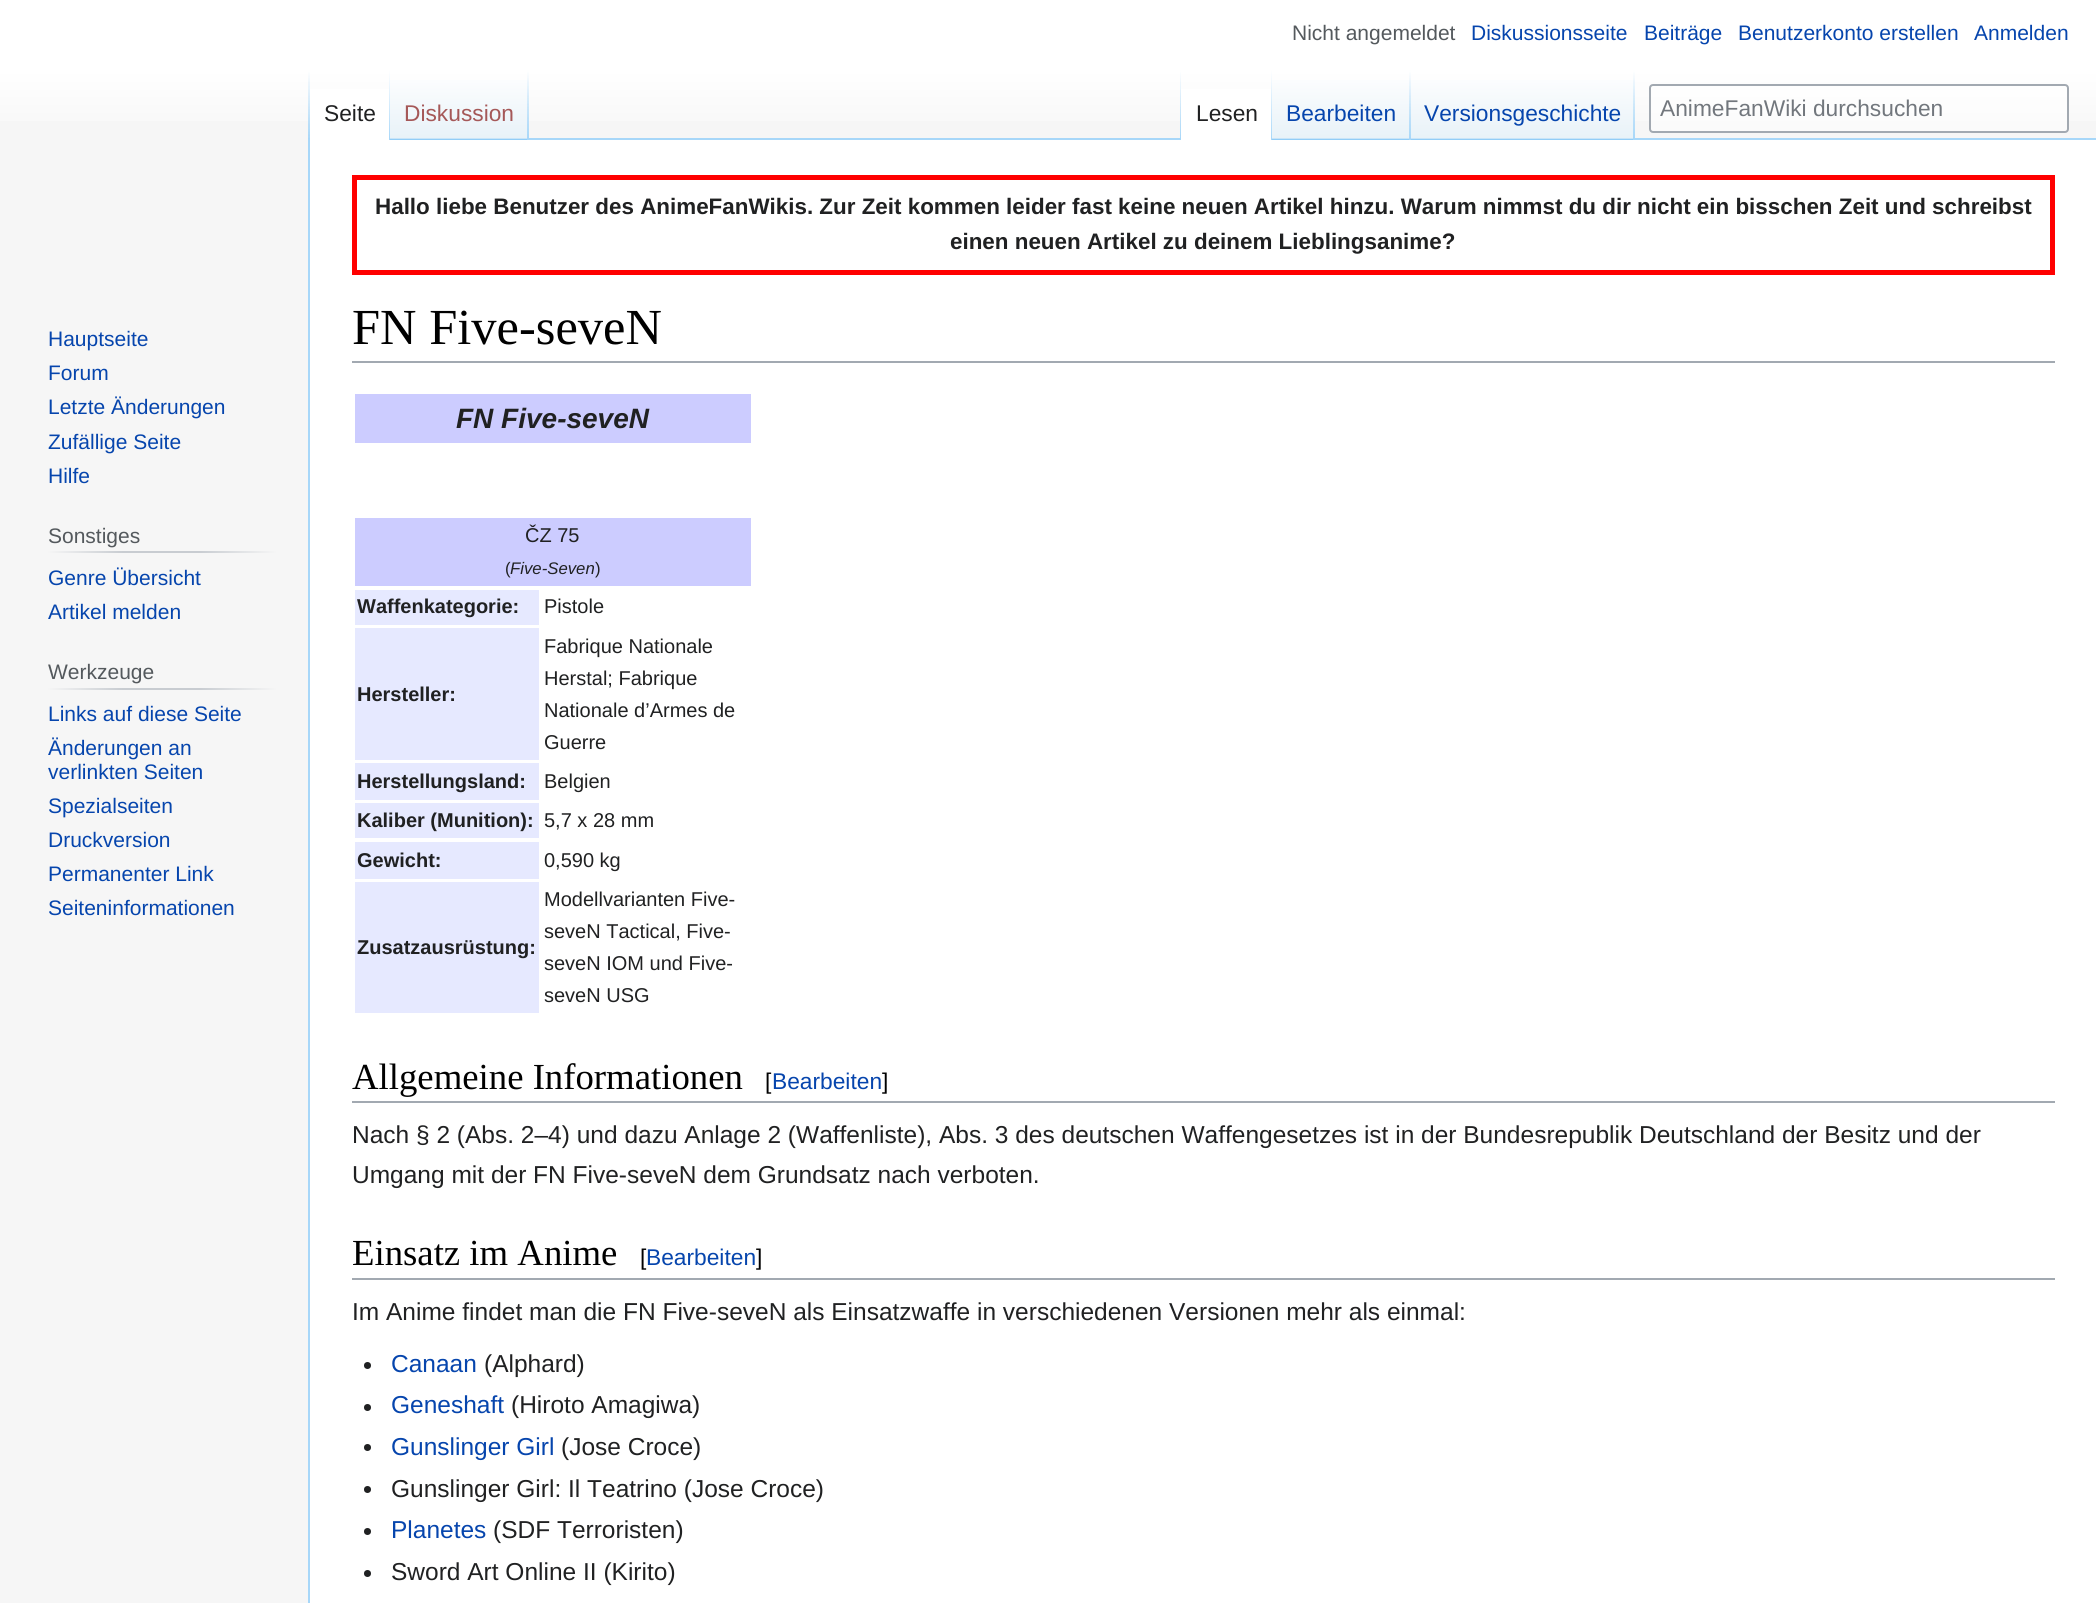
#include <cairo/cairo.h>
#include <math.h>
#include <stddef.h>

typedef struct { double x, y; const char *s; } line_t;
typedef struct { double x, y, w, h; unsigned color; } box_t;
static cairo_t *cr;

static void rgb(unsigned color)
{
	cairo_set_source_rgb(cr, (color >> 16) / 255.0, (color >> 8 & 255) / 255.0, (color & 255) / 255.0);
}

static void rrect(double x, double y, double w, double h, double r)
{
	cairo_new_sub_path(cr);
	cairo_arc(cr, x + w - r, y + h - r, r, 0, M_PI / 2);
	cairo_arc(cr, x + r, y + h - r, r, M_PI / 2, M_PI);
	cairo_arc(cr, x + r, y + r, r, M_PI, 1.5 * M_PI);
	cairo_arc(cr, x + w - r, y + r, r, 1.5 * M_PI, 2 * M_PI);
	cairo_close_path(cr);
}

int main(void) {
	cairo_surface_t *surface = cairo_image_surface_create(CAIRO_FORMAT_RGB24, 2096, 1603);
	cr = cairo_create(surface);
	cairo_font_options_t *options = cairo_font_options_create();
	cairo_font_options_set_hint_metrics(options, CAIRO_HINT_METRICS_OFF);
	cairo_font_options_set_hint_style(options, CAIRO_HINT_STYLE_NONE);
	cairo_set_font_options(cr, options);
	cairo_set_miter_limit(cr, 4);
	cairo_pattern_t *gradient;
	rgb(0xf6f6f6);
	cairo_paint(cr);
	gradient = cairo_pattern_create_linear(1048, 0, 1048, 140);
	cairo_pattern_add_color_stop_rgba(gradient, 0.5, 1, 1, 1, 1);
	cairo_pattern_add_color_stop_rgba(gradient, 1, 0.965, 0.965, 0.965, 1);
	cairo_set_source(cr, gradient);
	cairo_pattern_destroy(gradient);
	cairo_rectangle(cr, 0, 0, 2096, 121);
	cairo_fill(cr);
	rgb(0xa7d7f9);
	cairo_rectangle(cr, 308, 138, 2, 1465);
	cairo_fill(cr);
	gradient = cairo_pattern_create_linear(309, 70, 309, 140);
	cairo_pattern_add_color_stop_rgba(gradient, 0, 0.655, 0.843, 0.976, 0);
	cairo_pattern_add_color_stop_rgba(gradient, 1, 0.655, 0.843, 0.976, 1);
	cairo_set_source(cr, gradient);
	cairo_pattern_destroy(gradient);
	cairo_rectangle(cr, 308, 70, 2, 70);
	cairo_fill(cr);
	rgb(0xffffff);
	cairo_rectangle(cr, 310, 89, 79, 51);
	cairo_fill(cr);
	gradient = cairo_pattern_create_linear(389, 70, 389, 140);
	cairo_pattern_add_color_stop_rgba(gradient, 0, 1, 1, 1, 1);
	cairo_pattern_add_color_stop_rgba(gradient, 1, 0.655, 0.843, 0.976, 1);
	cairo_set_source(cr, gradient);
	cairo_pattern_destroy(gradient);
	cairo_rectangle(cr, 389, 70, 1, 70);
	cairo_fill(cr);
	gradient = cairo_pattern_create_linear(459, 140, 459, 70);
	cairo_pattern_add_color_stop_rgba(gradient, 0, 0.467, 0.757, 0.965, 1);
	cairo_pattern_add_color_stop_rgba(gradient, 0.03, 0.91, 0.949, 0.973, 1);
	cairo_pattern_add_color_stop_rgba(gradient, 1, 1, 1, 1, 1);
	cairo_set_source(cr, gradient);
	cairo_pattern_destroy(gradient);
	cairo_rectangle(cr, 390, 80, 139, 60);
	cairo_fill(cr);
	gradient = cairo_pattern_create_linear(528, 70, 528, 140);
	cairo_pattern_add_color_stop_rgba(gradient, 0, 0.655, 0.843, 0.976, 0);
	cairo_pattern_add_color_stop_rgba(gradient, 1, 0.655, 0.843, 0.976, 1);
	cairo_set_source(cr, gradient);
	cairo_pattern_destroy(gradient);
	cairo_rectangle(cr, 527, 70, 2, 70);
	cairo_fill(cr);
	rgb(0xa7d7f9);
	cairo_rectangle(cr, 529, 138, 1567, 2);
	cairo_fill(cr);
	gradient = cairo_pattern_create_linear(1180, 70, 1180, 140);
	cairo_pattern_add_color_stop_rgba(gradient, 0, 0.655, 0.843, 0.976, 0);
	cairo_pattern_add_color_stop_rgba(gradient, 1, 0.655, 0.843, 0.976, 1);
	cairo_set_source(cr, gradient);
	cairo_pattern_destroy(gradient);
	cairo_rectangle(cr, 1180, 70, 1, 70);
	cairo_fill(cr);
	rgb(0xffffff);
	cairo_rectangle(cr, 1181, 89, 90, 51);
	cairo_fill(cr);
	gradient = cairo_pattern_create_linear(1271, 70, 1271, 140);
	cairo_pattern_add_color_stop_rgba(gradient, 0, 1, 1, 1, 1);
	cairo_pattern_add_color_stop_rgba(gradient, 1, 0.655, 0.843, 0.976, 1);
	cairo_set_source(cr, gradient);
	cairo_pattern_destroy(gradient);
	cairo_rectangle(cr, 1271, 70, 1, 70);
	cairo_fill(cr);
	gradient = cairo_pattern_create_linear(1341, 140, 1341, 70);
	cairo_pattern_add_color_stop_rgba(gradient, 0, 0.467, 0.757, 0.965, 1);
	cairo_pattern_add_color_stop_rgba(gradient, 0.03, 0.91, 0.949, 0.973, 1);
	cairo_pattern_add_color_stop_rgba(gradient, 1, 1, 1, 1, 1);
	cairo_set_source(cr, gradient);
	cairo_pattern_destroy(gradient);
	cairo_rectangle(cr, 1272, 80, 139, 60);
	cairo_fill(cr);
	gradient = cairo_pattern_create_linear(1410, 70, 1410, 140);
	cairo_pattern_add_color_stop_rgba(gradient, 0, 0.655, 0.843, 0.976, 0);
	cairo_pattern_add_color_stop_rgba(gradient, 1, 0.655, 0.843, 0.976, 1);
	cairo_set_source(cr, gradient);
	cairo_pattern_destroy(gradient);
	cairo_rectangle(cr, 1409, 70, 2, 70);
	cairo_fill(cr);
	gradient = cairo_pattern_create_linear(1523, 140, 1523, 70);
	cairo_pattern_add_color_stop_rgba(gradient, 0, 0.467, 0.757, 0.965, 1);
	cairo_pattern_add_color_stop_rgba(gradient, 0.03, 0.91, 0.949, 0.973, 1);
	cairo_pattern_add_color_stop_rgba(gradient, 1, 1, 1, 1, 1);
	cairo_set_source(cr, gradient);
	cairo_pattern_destroy(gradient);
	cairo_rectangle(cr, 1411, 80, 224, 60);
	cairo_fill(cr);
	gradient = cairo_pattern_create_linear(1634, 70, 1634, 140);
	cairo_pattern_add_color_stop_rgba(gradient, 0, 0.655, 0.843, 0.976, 0);
	cairo_pattern_add_color_stop_rgba(gradient, 1, 0.655, 0.843, 0.976, 1);
	cairo_set_source(cr, gradient);
	cairo_pattern_destroy(gradient);
	cairo_rectangle(cr, 1633, 70, 2, 70);
	cairo_fill(cr);
	cairo_set_source_rgba(cr, 1, 1, 1, 0.5);
	rrect(1650, 85, 418, 47, 3);
	cairo_fill_preserve(cr);
	rgb(0xa2a9b1);
	cairo_stroke(cr);
	gradient = cairo_pattern_create_linear(47, 552, 277, 552);
	cairo_pattern_add_color_stop_rgba(gradient, 0, 0.965, 0.965, 0.965, 1);
	cairo_pattern_add_color_stop_rgba(gradient, 0.33, 0.784, 0.8, 0.82, 1);
	cairo_pattern_add_color_stop_rgba(gradient, 0.66, 0.784, 0.8, 0.82, 1);
	cairo_pattern_add_color_stop_rgba(gradient, 1, 0.965, 0.965, 0.965, 1);
	cairo_set_source(cr, gradient);
	cairo_pattern_destroy(gradient);
	cairo_rectangle(cr, 47, 551, 230, 2);
	cairo_fill(cr);
	gradient = cairo_pattern_create_linear(47, 689, 277, 689);
	cairo_pattern_add_color_stop_rgba(gradient, 0, 0.965, 0.965, 0.965, 1);
	cairo_pattern_add_color_stop_rgba(gradient, 0.33, 0.784, 0.8, 0.82, 1);
	cairo_pattern_add_color_stop_rgba(gradient, 0.66, 0.784, 0.8, 0.82, 1);
	cairo_pattern_add_color_stop_rgba(gradient, 1, 0.965, 0.965, 0.965, 1);
	cairo_set_source(cr, gradient);
	cairo_pattern_destroy(gradient);
	cairo_rectangle(cr, 47, 688, 230, 2);
	cairo_fill(cr);
	rgb(0xffffff);
	cairo_rectangle(cr, 310, 140, 1786, 1463);
	cairo_fill(cr);
	cairo_rectangle(cr, 354.5, 177.5, 1698, 95);
	rgb(0xff0000);
	cairo_set_line_width(cr, 5);
	cairo_stroke(cr);
	{
		static const box_t items[] = {
			{352, 361, 1703, 2, 0xa2a9b1},
			{355, 394, 396, 49, 0xccccff},
			{355, 518, 396, 68, 0xccccff},
			{355, 590, 184, 35, 0xe6e9ff},
			{355, 628, 184, 132, 0xe6e9ff},
			{355, 763, 184, 37, 0xe6e9ff},
			{355, 803, 184, 35, 0xe6e9ff},
			{355, 842, 184, 37, 0xe6e9ff},
			{355, 882, 184, 131, 0xe6e9ff},
			{352, 1101, 1703, 2, 0xa2a9b1},
			{352, 1278, 1703, 2, 0xa2a9b1},
		};
		for (size_t i = 0; i < sizeof items / sizeof *items; i++) {
			rgb(items[i].color);
			cairo_rectangle(cr, items[i].x, items[i].y, items[i].w, items[i].h);
			cairo_fill(cr);
		}
	}
	rgb(0x202122);
	cairo_arc(cr, 367.5, 1365.5, 3.5, 0, 2 * M_PI);
	cairo_fill(cr);
	cairo_arc(cr, 367.5, 1407.5, 3.5, 0, 2 * M_PI);
	cairo_fill(cr);
	cairo_arc(cr, 367.5, 1447.5, 3.5, 0, 2 * M_PI);
	cairo_fill(cr);
	cairo_arc(cr, 367.5, 1489.5, 3.5, 0, 2 * M_PI);
	cairo_fill(cr);
	cairo_arc(cr, 367.5, 1531.5, 3.5, 0, 2 * M_PI);
	cairo_fill(cr);
	cairo_arc(cr, 367.5, 1573.5, 3.5, 0, 2 * M_PI);
	cairo_fill(cr);
	cairo_select_font_face(cr, "Liberation Sans", CAIRO_FONT_SLANT_NORMAL, CAIRO_FONT_WEIGHT_NORMAL);
	cairo_set_font_size(cr, 21);
	rgb(0x54595d);
	cairo_move_to(cr, 1292, 40);
	cairo_show_text(cr, "Nicht angemeldet");
	rgb(0x0645ad);
	{
		static const line_t items[] = {
			{1471, 40, "Diskussionsseite"},
			{1644, 40, "Beiträge"},
			{1738, 40, "Benutzerkonto erstellen"},
			{1974, 40, "Anmelden"},
		};
		for (size_t i = 0; i < sizeof items / sizeof *items; i++) {
			cairo_move_to(cr, items[i].x, items[i].y);
			cairo_show_text(cr, items[i].s);
		}
	}
	cairo_set_font_size(cr, 22.75);
	rgb(0x202122);
	cairo_move_to(cr, 324, 121);
	cairo_show_text(cr, "Seite");
	rgb(0xa55858);
	cairo_move_to(cr, 404, 121);
	cairo_show_text(cr, "Diskussion");
	rgb(0x202122);
	cairo_move_to(cr, 1196, 121);
	cairo_show_text(cr, "Lesen");
	rgb(0x0645ad);
	cairo_move_to(cr, 1286, 121);
	cairo_show_text(cr, "Bearbeiten");
	cairo_move_to(cr, 1424, 121);
	cairo_show_text(cr, "Versionsgeschichte");
	rgb(0x72777d);
	cairo_move_to(cr, 1660, 116);
	cairo_show_text(cr, "AnimeFanWiki durchsuchen");
	cairo_set_font_size(cr, 21);
	rgb(0x0645ad);
	{
		static const line_t items[] = {
			{48, 346, "Hauptseite"},
			{48, 380, "Forum"},
			{48, 414, "Letzte Änderungen"},
			{48, 449, "Zufällige Seite"},
			{48, 483, "Hilfe"},
		};
		for (size_t i = 0; i < sizeof items / sizeof *items; i++) {
			cairo_move_to(cr, items[i].x, items[i].y);
			cairo_show_text(cr, items[i].s);
		}
	}
	rgb(0x54595d);
	cairo_move_to(cr, 48, 543);
	cairo_show_text(cr, "Sonstiges");
	rgb(0x0645ad);
	cairo_move_to(cr, 48, 585);
	cairo_show_text(cr, "Genre Übersicht");
	cairo_move_to(cr, 48, 619);
	cairo_show_text(cr, "Artikel melden");
	rgb(0x54595d);
	cairo_move_to(cr, 48, 679);
	cairo_show_text(cr, "Werkzeuge");
	rgb(0x0645ad);
	{
		static const line_t items[] = {
			{48, 721, "Links auf diese Seite"},
			{48, 755, "Änderungen an"},
			{48, 779, "verlinkten Seiten"},
			{48, 813, "Spezialseiten"},
			{48, 847, "Druckversion"},
			{48, 881, "Permanenter Link"},
			{48, 915, "Seiteninformationen"},
		};
		for (size_t i = 0; i < sizeof items / sizeof *items; i++) {
			cairo_move_to(cr, items[i].x, items[i].y);
			cairo_show_text(cr, items[i].s);
		}
	}
	cairo_select_font_face(cr, "Liberation Sans", CAIRO_FONT_SLANT_NORMAL, CAIRO_FONT_WEIGHT_BOLD);
	cairo_set_font_size(cr, 22.4);
	rgb(0x202122);
	cairo_move_to(cr, 375, 214);
	cairo_show_text(cr, "Hallo liebe Benutzer des AnimeFanWikis. Zur Zeit kommen leider fast keine neuen Artikel hinzu. Warum nimmst du dir nicht ein bisschen Zeit und schreibst");
	cairo_move_to(cr, 950, 249);
	cairo_show_text(cr, "einen neuen Artikel zu deinem Lieblingsanime?");
	cairo_select_font_face(cr, "Liberation Serif", CAIRO_FONT_SLANT_NORMAL, CAIRO_FONT_WEIGHT_NORMAL);
	cairo_set_font_size(cr, 50.5);
	rgb(0x000000);
	cairo_move_to(cr, 352, 344);
	cairo_show_text(cr, "FN Five-seveN");
	cairo_select_font_face(cr, "Liberation Sans", CAIRO_FONT_SLANT_ITALIC, CAIRO_FONT_WEIGHT_BOLD);
	cairo_set_font_size(cr, 28);
	rgb(0x202122);
	cairo_move_to(cr, 456, 428);
	cairo_show_text(cr, "FN Five-seveN");
	cairo_select_font_face(cr, "Liberation Sans", CAIRO_FONT_SLANT_NORMAL, CAIRO_FONT_WEIGHT_NORMAL);
	cairo_set_font_size(cr, 20);
	cairo_move_to(cr, 525, 542);
	cairo_show_text(cr, "ČZ 75");
	cairo_set_font_size(cr, 16.75);
	cairo_move_to(cr, 505, 574);
	cairo_show_text(cr, "(");
	cairo_select_font_face(cr, "Liberation Sans", CAIRO_FONT_SLANT_ITALIC, CAIRO_FONT_WEIGHT_NORMAL);
	cairo_move_to(cr, 510, 574);
	cairo_show_text(cr, "Five-Seven");
	cairo_select_font_face(cr, "Liberation Sans", CAIRO_FONT_SLANT_NORMAL, CAIRO_FONT_WEIGHT_NORMAL);
	cairo_move_to(cr, 595, 574);
	cairo_show_text(cr, ")");
	cairo_select_font_face(cr, "Liberation Sans", CAIRO_FONT_SLANT_NORMAL, CAIRO_FONT_WEIGHT_BOLD);
	cairo_set_font_size(cr, 20);
	cairo_move_to(cr, 357, 613);
	cairo_show_text(cr, "Waffenkategorie:");
	cairo_select_font_face(cr, "Liberation Sans", CAIRO_FONT_SLANT_NORMAL, CAIRO_FONT_WEIGHT_NORMAL);
	cairo_move_to(cr, 544, 613);
	cairo_show_text(cr, "Pistole");
	cairo_select_font_face(cr, "Liberation Sans", CAIRO_FONT_SLANT_NORMAL, CAIRO_FONT_WEIGHT_BOLD);
	cairo_move_to(cr, 357, 701);
	cairo_show_text(cr, "Hersteller:");
	cairo_select_font_face(cr, "Liberation Sans", CAIRO_FONT_SLANT_NORMAL, CAIRO_FONT_WEIGHT_NORMAL);
	{
		static const line_t items[] = {
			{544, 653, "Fabrique Nationale"},
			{544, 685, "Herstal; Fabrique"},
			{544, 717, "Nationale d’Armes de"},
			{544, 749, "Guerre"},
		};
		for (size_t i = 0; i < sizeof items / sizeof *items; i++) {
			cairo_move_to(cr, items[i].x, items[i].y);
			cairo_show_text(cr, items[i].s);
		}
	}
	cairo_select_font_face(cr, "Liberation Sans", CAIRO_FONT_SLANT_NORMAL, CAIRO_FONT_WEIGHT_BOLD);
	cairo_move_to(cr, 357, 788);
	cairo_show_text(cr, "Herstellungsland:");
	cairo_select_font_face(cr, "Liberation Sans", CAIRO_FONT_SLANT_NORMAL, CAIRO_FONT_WEIGHT_NORMAL);
	cairo_move_to(cr, 544, 788);
	cairo_show_text(cr, "Belgien");
	cairo_select_font_face(cr, "Liberation Sans", CAIRO_FONT_SLANT_NORMAL, CAIRO_FONT_WEIGHT_BOLD);
	cairo_move_to(cr, 357, 827);
	cairo_show_text(cr, "Kaliber (Munition):");
	cairo_select_font_face(cr, "Liberation Sans", CAIRO_FONT_SLANT_NORMAL, CAIRO_FONT_WEIGHT_NORMAL);
	cairo_move_to(cr, 544, 827);
	cairo_show_text(cr, "5,7 x 28 mm");
	cairo_select_font_face(cr, "Liberation Sans", CAIRO_FONT_SLANT_NORMAL, CAIRO_FONT_WEIGHT_BOLD);
	cairo_move_to(cr, 357, 867);
	cairo_show_text(cr, "Gewicht:");
	cairo_select_font_face(cr, "Liberation Sans", CAIRO_FONT_SLANT_NORMAL, CAIRO_FONT_WEIGHT_NORMAL);
	cairo_move_to(cr, 544, 867);
	cairo_show_text(cr, "0,590 kg");
	cairo_select_font_face(cr, "Liberation Sans", CAIRO_FONT_SLANT_NORMAL, CAIRO_FONT_WEIGHT_BOLD);
	cairo_move_to(cr, 357, 954);
	cairo_show_text(cr, "Zusatzausrüstung:");
	cairo_select_font_face(cr, "Liberation Sans", CAIRO_FONT_SLANT_NORMAL, CAIRO_FONT_WEIGHT_NORMAL);
	{
		static const line_t items[] = {
			{544, 906, "Modellvarianten Five-"},
			{544, 938, "seveN Tactical, Five-"},
			{544, 970, "seveN IOM und Five-"},
			{544, 1002, "seveN USG"},
		};
		for (size_t i = 0; i < sizeof items / sizeof *items; i++) {
			cairo_move_to(cr, items[i].x, items[i].y);
			cairo_show_text(cr, items[i].s);
		}
	}
	cairo_select_font_face(cr, "Liberation Serif", CAIRO_FONT_SLANT_NORMAL, CAIRO_FONT_WEIGHT_NORMAL);
	cairo_set_font_size(cr, 36.75);
	rgb(0x000000);
	cairo_move_to(cr, 352, 1089);
	cairo_show_text(cr, "Allgemeine Informationen");
	cairo_select_font_face(cr, "Liberation Sans", CAIRO_FONT_SLANT_NORMAL, CAIRO_FONT_WEIGHT_NORMAL);
	cairo_set_font_size(cr, 22.75);
	cairo_move_to(cr, 765, 1089);
	cairo_show_text(cr, "[");
	rgb(0x0645ad);
	cairo_move_to(cr, 772, 1089);
	cairo_show_text(cr, "Bearbeiten");
	rgb(0x000000);
	cairo_move_to(cr, 882, 1089);
	cairo_show_text(cr, "]");
	cairo_set_font_size(cr, 24.5);
	rgb(0x202122);
	cairo_move_to(cr, 352, 1143);
	cairo_show_text(cr, "Nach § 2 (Abs. 2–4) und dazu Anlage 2 (Waffenliste), Abs. 3 des deutschen Waffengesetzes ist in der Bundesrepublik Deutschland der Besitz und der");
	cairo_move_to(cr, 352, 1183);
	cairo_show_text(cr, "Umgang mit der FN Five-seveN dem Grundsatz nach verboten.");
	cairo_select_font_face(cr, "Liberation Serif", CAIRO_FONT_SLANT_NORMAL, CAIRO_FONT_WEIGHT_NORMAL);
	cairo_set_font_size(cr, 36.75);
	rgb(0x000000);
	cairo_move_to(cr, 352, 1265);
	cairo_show_text(cr, "Einsatz im Anime");
	cairo_select_font_face(cr, "Liberation Sans", CAIRO_FONT_SLANT_NORMAL, CAIRO_FONT_WEIGHT_NORMAL);
	cairo_set_font_size(cr, 22.75);
	cairo_move_to(cr, 640, 1265);
	cairo_show_text(cr, "[");
	rgb(0x0645ad);
	cairo_move_to(cr, 646, 1265);
	cairo_show_text(cr, "Bearbeiten");
	rgb(0x000000);
	cairo_move_to(cr, 756, 1265);
	cairo_show_text(cr, "]");
	cairo_set_font_size(cr, 24.5);
	rgb(0x202122);
	cairo_move_to(cr, 352, 1320);
	cairo_show_text(cr, "Im Anime findet man die FN Five-seveN als Einsatzwaffe in verschiedenen Versionen mehr als einmal:");
	rgb(0x0645ad);
	cairo_move_to(cr, 391, 1372);
	cairo_show_text(cr, "Canaan");
	rgb(0x202122);
	cairo_move_to(cr, 484, 1372);
	cairo_show_text(cr, "(Alphard)");
	rgb(0x0645ad);
	cairo_move_to(cr, 391, 1413);
	cairo_show_text(cr, "Geneshaft");
	rgb(0x202122);
	cairo_move_to(cr, 511, 1413);
	cairo_show_text(cr, "(Hiroto Amagiwa)");
	rgb(0x0645ad);
	cairo_move_to(cr, 391, 1455);
	cairo_show_text(cr, "Gunslinger Girl");
	rgb(0x202122);
	cairo_move_to(cr, 561, 1455);
	cairo_show_text(cr, "(Jose Croce)");
	cairo_move_to(cr, 391, 1497);
	cairo_show_text(cr, "Gunslinger Girl: Il Teatrino (Jose Croce)");
	rgb(0x0645ad);
	cairo_move_to(cr, 391, 1538);
	cairo_show_text(cr, "Planetes");
	rgb(0x202122);
	cairo_move_to(cr, 493, 1538);
	cairo_show_text(cr, "(SDF Terroristen)");
	cairo_move_to(cr, 391, 1580);
	cairo_show_text(cr, "Sword Art Online II (Kirito)");
	cairo_surface_write_to_png(surface, "page.png");
	cairo_font_options_destroy(options);
	cairo_destroy(cr);
	cairo_surface_destroy(surface);
	return 0;
}
